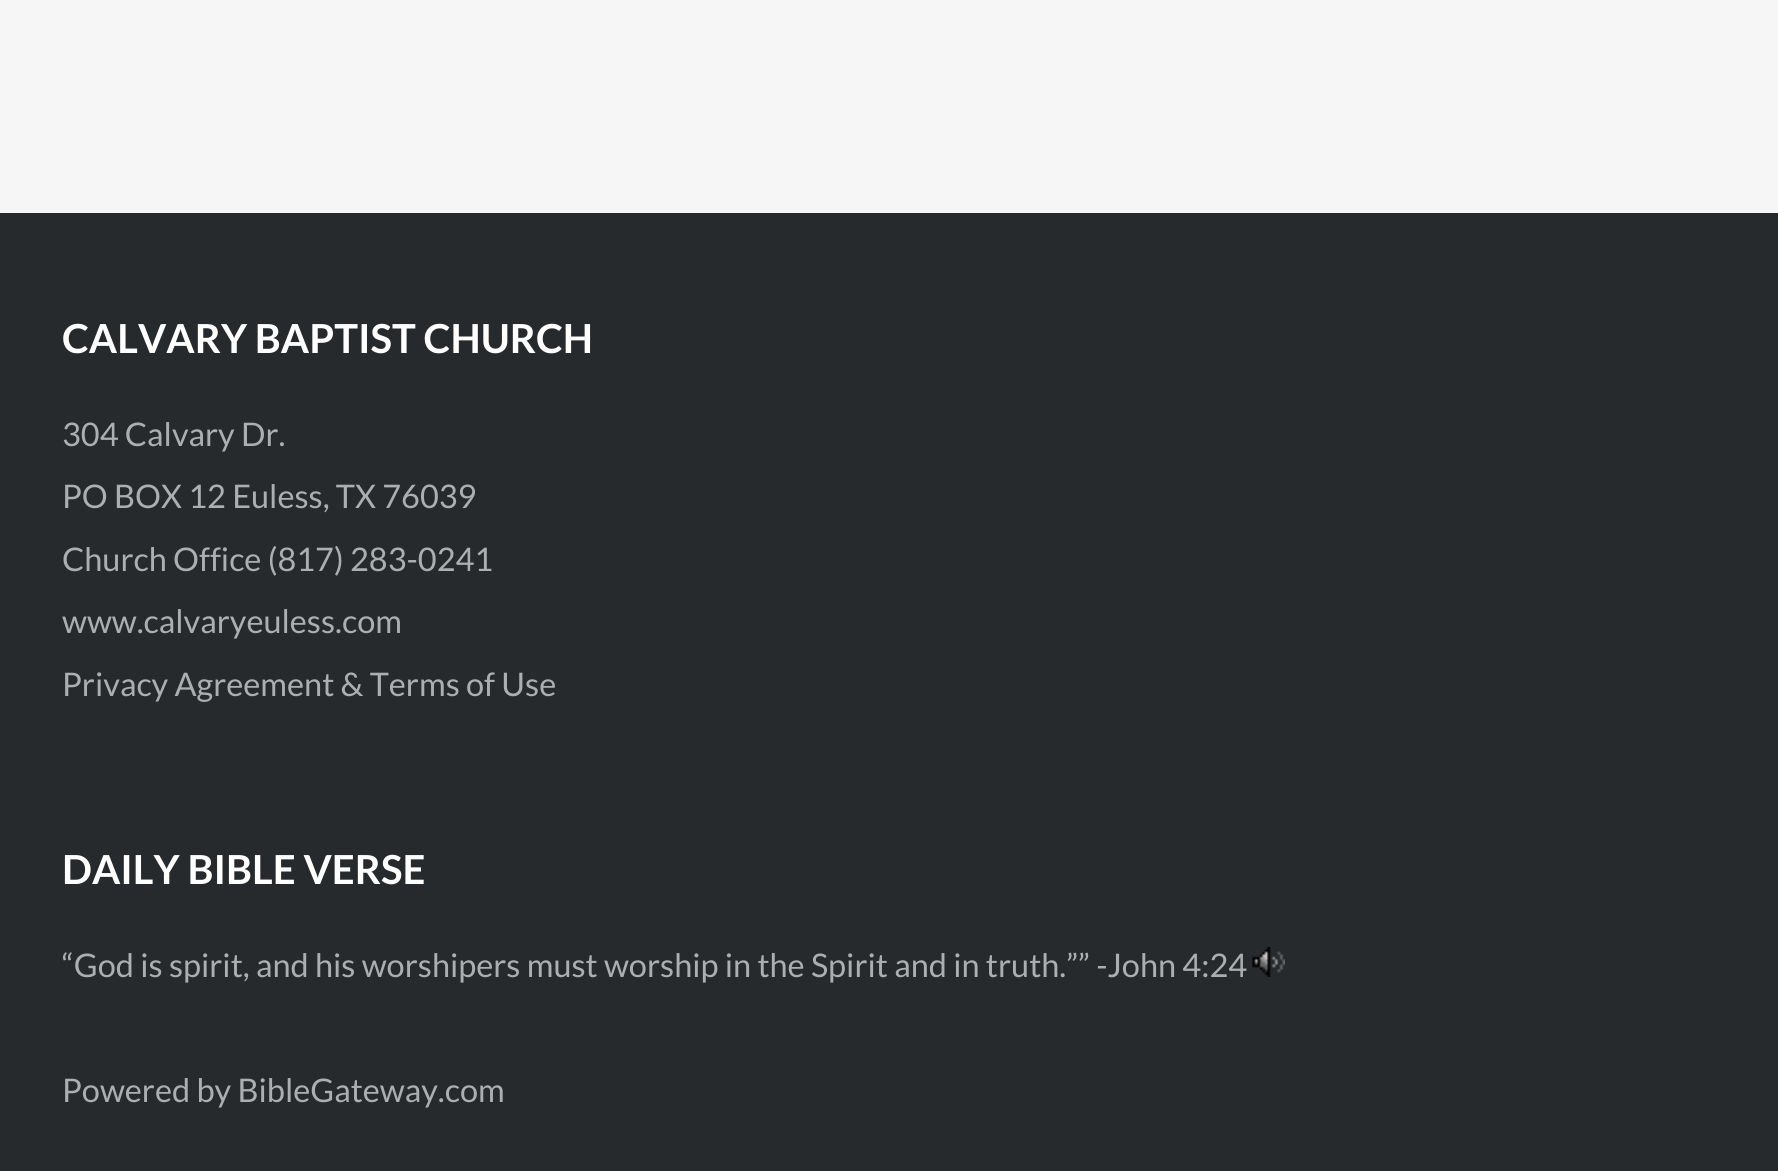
#include <cairo/cairo.h>
#include <math.h>
#include <stddef.h>

typedef struct { double x, y; const char *s; } line_t;
static cairo_t *cr;

static void rgb(unsigned color)
{
	cairo_set_source_rgb(cr, (color >> 16) / 255.0, (color >> 8 & 255) / 255.0, (color & 255) / 255.0);
}

static void image(const char *path, double x, double y, double w, double h)
{
	cairo_surface_t *image = cairo_image_surface_create_from_png(path);
	cairo_save(cr);
	cairo_set_source_surface(cr, image, x, y);
	cairo_rectangle(cr, x, y, w, h);
	cairo_fill(cr);
	cairo_restore(cr);
	cairo_surface_destroy(image);
}

int main(void) {
	cairo_surface_t *surface = cairo_image_surface_create(CAIRO_FORMAT_RGB24, 1778, 1171);
	cr = cairo_create(surface);
	cairo_font_options_t *options = cairo_font_options_create();
	cairo_font_options_set_hint_metrics(options, CAIRO_HINT_METRICS_OFF);
	cairo_font_options_set_hint_style(options, CAIRO_HINT_STYLE_NONE);
	cairo_set_font_options(cr, options);
	cairo_set_miter_limit(cr, 4);
	rgb(0xf6f6f7);
	cairo_paint(cr);
	rgb(0x272a2d);
	cairo_rectangle(cr, 0, 213, 1778, 958);
	cairo_fill(cr);
	image("img/1.png", 1252, 947, 33, 30);
	cairo_select_font_face(cr, "Lato", CAIRO_FONT_SLANT_NORMAL, CAIRO_FONT_WEIGHT_BOLD);
	cairo_set_font_size(cr, 40);
	rgb(0xffffff);
	cairo_move_to(cr, 62, 353);
	cairo_show_text(cr, "CALVARY BAPTIST CHURCH");
	cairo_select_font_face(cr, "Lato", CAIRO_FONT_SLANT_NORMAL, CAIRO_FONT_WEIGHT_NORMAL);
	cairo_set_font_size(cr, 32.5);
	rgb(0xacaeaf);
	{
		static const line_t items[] = {
			{62, 446, "304 Calvary Dr."},
			{62, 508, "PO BOX 12 Euless, TX 76039"},
			{62, 571, "Church Office (817) 283-0241"},
			{62, 633, "www.calvaryeuless.com"},
			{62, 696, "Privacy Agreement & Terms of Use"},
		};
		for (size_t i = 0; i < sizeof items / sizeof *items; i++) {
			cairo_move_to(cr, items[i].x, items[i].y);
			cairo_show_text(cr, items[i].s);
		}
	}
	cairo_select_font_face(cr, "Lato", CAIRO_FONT_SLANT_NORMAL, CAIRO_FONT_WEIGHT_BOLD);
	cairo_set_font_size(cr, 40);
	rgb(0xffffff);
	cairo_move_to(cr, 62, 884);
	cairo_show_text(cr, "DAILY BIBLE VERSE");
	cairo_select_font_face(cr, "Lato", CAIRO_FONT_SLANT_NORMAL, CAIRO_FONT_WEIGHT_NORMAL);
	cairo_set_font_size(cr, 32.5);
	rgb(0xacaeaf);
	cairo_move_to(cr, 62, 977);
	cairo_show_text(cr, "“God is spirit, and his worshipers must worship in the Spirit and in truth.”” -John 4:24");
	cairo_move_to(cr, 62, 1102);
	cairo_show_text(cr, "Powered by BibleGateway.com");
	cairo_surface_write_to_png(surface, "page.png");
	cairo_font_options_destroy(options);
	cairo_destroy(cr);
	cairo_surface_destroy(surface);
	return 0;
}
